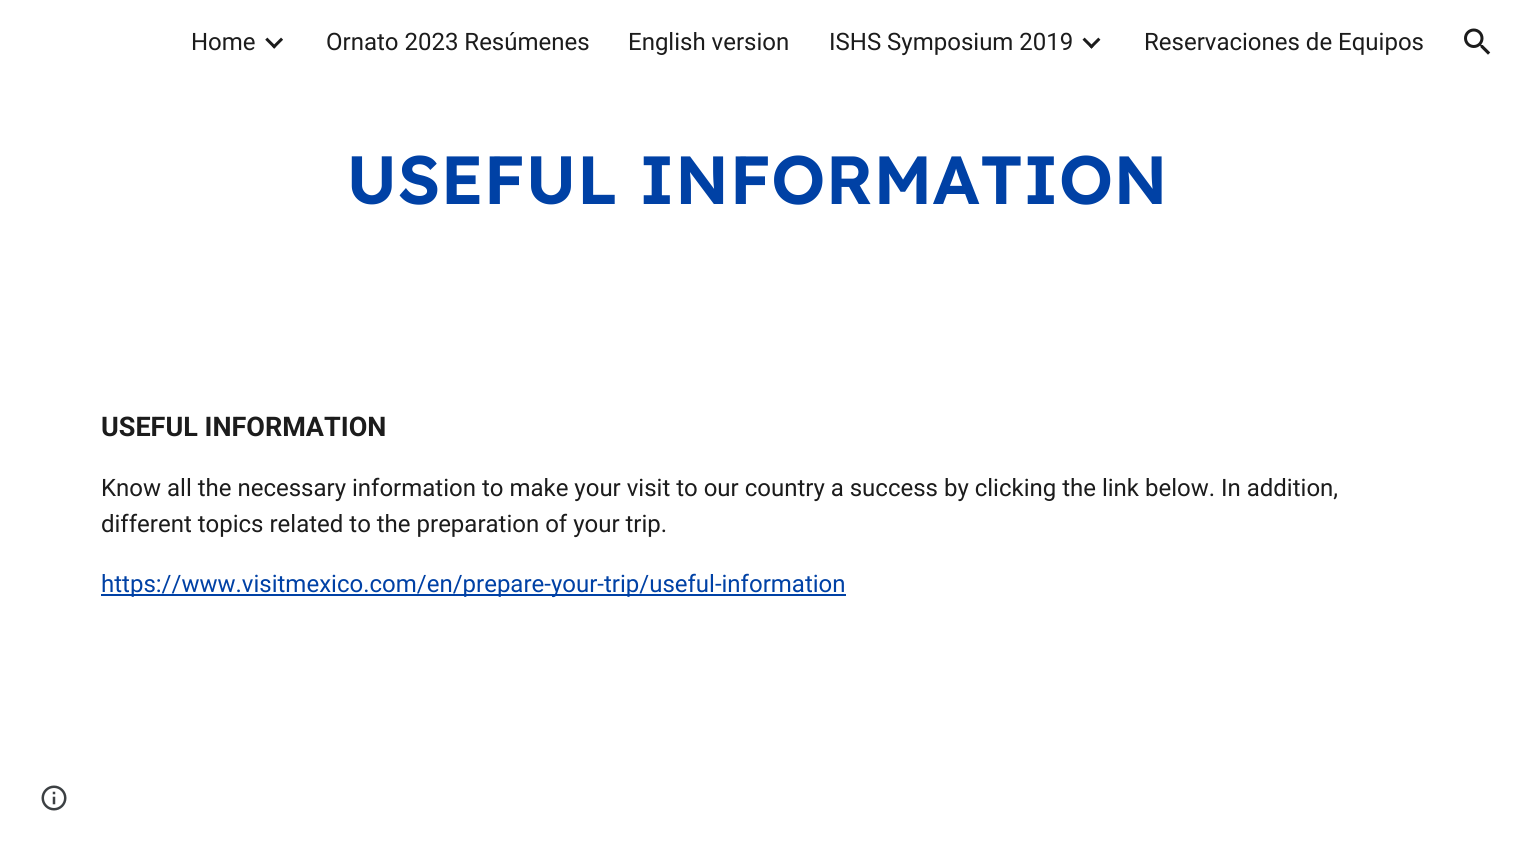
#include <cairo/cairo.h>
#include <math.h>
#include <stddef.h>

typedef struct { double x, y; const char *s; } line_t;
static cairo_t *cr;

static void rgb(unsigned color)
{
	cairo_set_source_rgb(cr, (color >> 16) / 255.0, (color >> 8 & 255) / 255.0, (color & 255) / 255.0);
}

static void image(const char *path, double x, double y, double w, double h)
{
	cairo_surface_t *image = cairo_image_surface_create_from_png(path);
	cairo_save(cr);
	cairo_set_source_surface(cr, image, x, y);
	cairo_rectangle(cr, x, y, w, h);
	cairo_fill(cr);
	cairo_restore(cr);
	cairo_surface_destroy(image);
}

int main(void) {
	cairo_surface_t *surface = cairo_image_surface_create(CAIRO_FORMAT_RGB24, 1513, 848);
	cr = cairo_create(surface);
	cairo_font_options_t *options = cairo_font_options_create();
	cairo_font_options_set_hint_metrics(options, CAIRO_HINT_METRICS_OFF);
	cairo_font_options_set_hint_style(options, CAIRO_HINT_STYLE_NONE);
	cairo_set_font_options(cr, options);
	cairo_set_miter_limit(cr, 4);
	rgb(0xffffff);
	cairo_paint(cr);
	image("img/1.png", 265, 37, 18, 12);
	image("img/2.png", 1082, 37, 19, 12);
	image("img/3.png", 1464, 28, 27, 27);
	rgb(0x0041a5);
	cairo_rectangle(cr, 101, 594, 745, 2);
	cairo_fill(cr);
	image("img/4.png", 41, 785, 26, 26);
	cairo_select_font_face(cr, "Roboto", CAIRO_FONT_SLANT_NORMAL, CAIRO_FONT_WEIGHT_NORMAL);
	cairo_set_font_size(cr, 24);
	rgb(0x1c1c1c);
	{
		static const line_t items[] = {
			{191, 50, "Home"},
			{326, 50, "Ornato 2023 Resúmenes"},
			{628, 50, "English version"},
			{829, 50, "ISHS Symposium 2019"},
			{1144, 50, "Reservaciones de Equipos"},
		};
		for (size_t i = 0; i < sizeof items / sizeof *items; i++) {
			cairo_move_to(cr, items[i].x, items[i].y);
			cairo_show_text(cr, items[i].s);
		}
	}
	cairo_select_font_face(cr, "Lexend SemiBold", CAIRO_FONT_SLANT_NORMAL, CAIRO_FONT_WEIGHT_NORMAL);
	cairo_set_font_size(cr, 68);
	rgb(0x0041a5);
	cairo_move_to(cr, 346, 204);
	cairo_show_text(cr, "USEFUL INFORMATION");
	cairo_select_font_face(cr, "Roboto", CAIRO_FONT_SLANT_NORMAL, CAIRO_FONT_WEIGHT_BOLD);
	cairo_set_font_size(cr, 27);
	rgb(0x1c1c1c);
	cairo_move_to(cr, 101, 436);
	cairo_show_text(cr, "USEFUL INFORMATION");
	cairo_select_font_face(cr, "Roboto", CAIRO_FONT_SLANT_NORMAL, CAIRO_FONT_WEIGHT_NORMAL);
	cairo_set_font_size(cr, 24);
	cairo_move_to(cr, 101, 496);
	cairo_show_text(cr, "Know all the necessary information to make your visit to our country a success by clicking the link below. In addition,");
	cairo_move_to(cr, 101, 532);
	cairo_show_text(cr, "different topics related to the preparation of your trip.");
	rgb(0x0041a5);
	cairo_move_to(cr, 101, 592);
	cairo_show_text(cr, "https://www.visitmexico.com/en/prepare-your-trip/useful-information");
	cairo_surface_write_to_png(surface, "page.png");
	cairo_font_options_destroy(options);
	cairo_destroy(cr);
	cairo_surface_destroy(surface);
	return 0;
}
